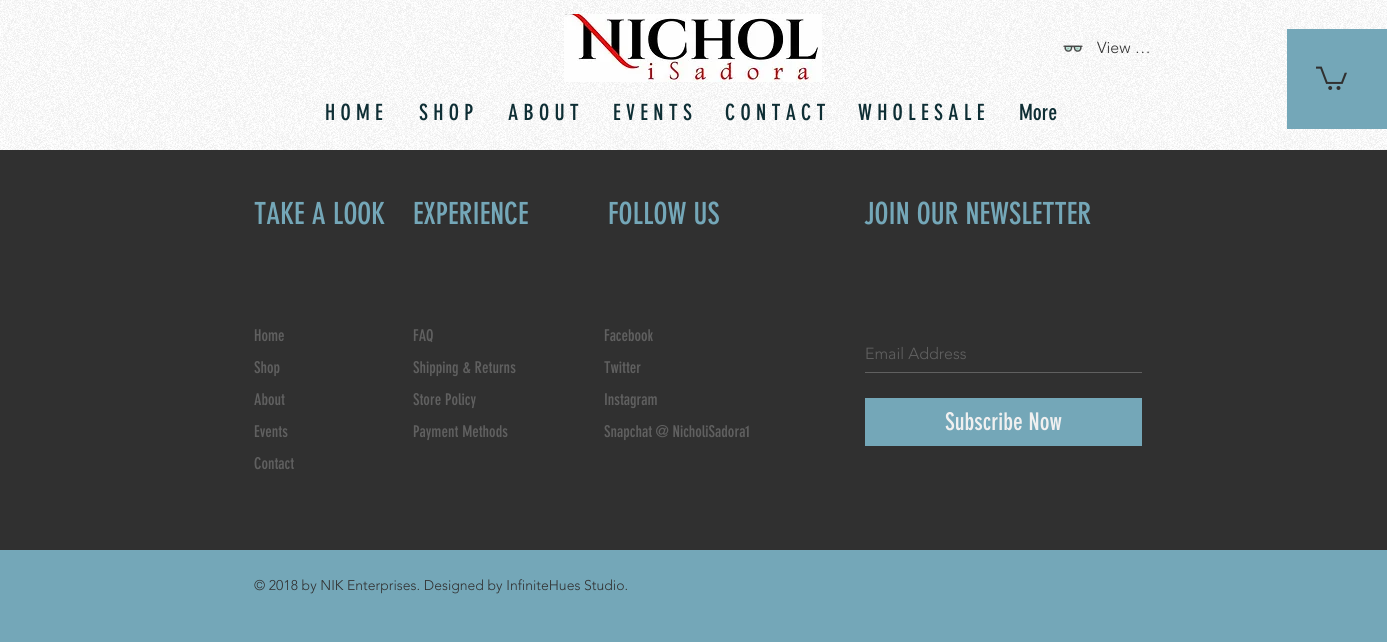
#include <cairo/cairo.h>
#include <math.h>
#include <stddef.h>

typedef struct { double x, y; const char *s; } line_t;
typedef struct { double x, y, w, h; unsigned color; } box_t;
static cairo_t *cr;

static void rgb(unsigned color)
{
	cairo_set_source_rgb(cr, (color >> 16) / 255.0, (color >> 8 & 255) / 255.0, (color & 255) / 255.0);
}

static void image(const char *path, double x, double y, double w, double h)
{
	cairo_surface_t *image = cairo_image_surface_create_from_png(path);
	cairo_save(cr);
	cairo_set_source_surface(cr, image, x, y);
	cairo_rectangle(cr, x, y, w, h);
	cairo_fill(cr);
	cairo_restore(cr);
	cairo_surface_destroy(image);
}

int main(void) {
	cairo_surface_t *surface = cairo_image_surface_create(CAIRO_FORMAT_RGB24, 1387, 642);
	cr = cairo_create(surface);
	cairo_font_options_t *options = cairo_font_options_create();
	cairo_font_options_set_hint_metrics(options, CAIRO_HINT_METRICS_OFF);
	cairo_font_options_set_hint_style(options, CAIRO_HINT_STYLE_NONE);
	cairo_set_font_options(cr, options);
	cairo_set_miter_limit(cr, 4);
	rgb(0x74a7b8);
	cairo_paint(cr);
	rgb(0xffffff);
	cairo_rectangle(cr, 0, 0, 1387, 150);
	cairo_fill(cr);
	image("img/1.png", 0, 0, 1387, 150);
	image("img/2.png", 564, 14, 258, 68);
	image("img/3.png", 1063, 45, 20, 7);
	rgb(0x74a7b8);
	cairo_rectangle(cr, 1287, 29, 100, 100);
	cairo_fill(cr);
	image("img/4.png", 1316, 66, 31, 24);
	{
		static const box_t items[] = {
			{0, 150, 1387, 400, 0x303030},
			{865, 372, 277, 1, 0x606060},
			{865, 398, 277, 48, 0x74a7b8},
		};
		for (size_t i = 0; i < sizeof items / sizeof *items; i++) {
			rgb(items[i].color);
			cairo_rectangle(cr, items[i].x, items[i].y, items[i].w, items[i].h);
			cairo_fill(cr);
		}
	}
	cairo_select_font_face(cr, "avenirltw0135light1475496 Light", CAIRO_FONT_SLANT_NORMAL, CAIRO_FONT_WEIGHT_NORMAL);
	cairo_set_font_size(cr, 16);
	rgb(0x303030);
	cairo_move_to(cr, 1097, 53);
	cairo_show_text(cr, "View …");
	cairo_select_font_face(cr, "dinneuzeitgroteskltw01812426", CAIRO_FONT_SLANT_NORMAL, CAIRO_FONT_WEIGHT_NORMAL);
	cairo_set_font_size(cr, 22);
	rgb(0x0e2e34);
	{
		static const line_t items[] = {
			{325, 120, "H O M E"},
			{419, 120, "S H O P"},
			{508, 120, "A B O U T"},
			{613, 120, "E V E N T S"},
			{725, 120, "C O N T A C T"},
			{858, 120, "W H O L E S A L E"},
			{1019, 120, "More"},
		};
		for (size_t i = 0; i < sizeof items / sizeof *items; i++) {
			cairo_move_to(cr, items[i].x, items[i].y);
			cairo_show_text(cr, items[i].s);
		}
	}
	cairo_set_font_size(cr, 30);
	rgb(0x74a7b8);
	{
		static const line_t items[] = {
			{254, 224, "TAKE A LOOK"},
			{413, 224, "EXPERIENCE"},
			{608, 224, "FOLLOW US"},
			{864, 224, "JOIN OUR NEWSLETTER"},
		};
		for (size_t i = 0; i < sizeof items / sizeof *items; i++) {
			cairo_move_to(cr, items[i].x, items[i].y);
			cairo_show_text(cr, items[i].s);
		}
	}
	cairo_set_font_size(cr, 16);
	rgb(0x606060);
	{
		static const line_t items[] = {
			{254, 341, "Home"},
			{254, 373, "Shop"},
			{254, 405, "About"},
			{254, 437, "Events"},
			{254, 469, "Contact"},
			{413, 341, "FAQ"},
			{413, 373, "Shipping & Returns"},
			{413, 405, "Store Policy"},
			{413, 437, "Payment Methods"},
			{604, 341, "Facebook"},
			{604, 373, "Twitter"},
			{604, 405, "Instagram"},
			{604, 437, "Snapchat @ NicholiSadora1"},
		};
		for (size_t i = 0; i < sizeof items / sizeof *items; i++) {
			cairo_move_to(cr, items[i].x, items[i].y);
			cairo_show_text(cr, items[i].s);
		}
	}
	cairo_select_font_face(cr, "avenirltw0135light1475496 Light", CAIRO_FONT_SLANT_NORMAL, CAIRO_FONT_WEIGHT_NORMAL);
	cairo_move_to(cr, 865, 359);
	cairo_show_text(cr, "Email Address");
	cairo_select_font_face(cr, "dinneuzeitgroteskltw01812426", CAIRO_FONT_SLANT_NORMAL, CAIRO_FONT_WEIGHT_NORMAL);
	cairo_set_font_size(cr, 24);
	rgb(0xf0f0f0);
	cairo_move_to(cr, 945, 430);
	cairo_show_text(cr, "Subscribe Now");
	cairo_select_font_face(cr, "avenirltw0135light1475496 Light", CAIRO_FONT_SLANT_NORMAL, CAIRO_FONT_WEIGHT_NORMAL);
	cairo_set_font_size(cr, 14);
	rgb(0x303030);
	cairo_move_to(cr, 254, 590);
	cairo_show_text(cr, "© 2018 by NIK Enterprises. Designed by InfiniteHues Studio.");
	cairo_surface_write_to_png(surface, "page.png");
	cairo_font_options_destroy(options);
	cairo_destroy(cr);
	cairo_surface_destroy(surface);
	return 0;
}
